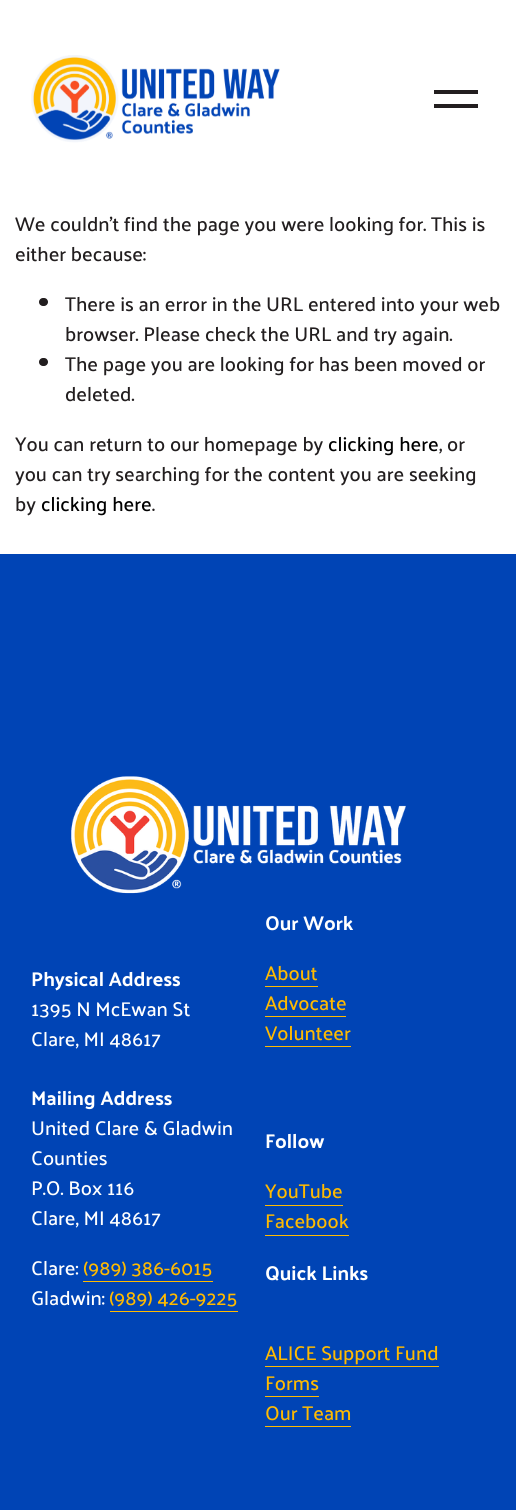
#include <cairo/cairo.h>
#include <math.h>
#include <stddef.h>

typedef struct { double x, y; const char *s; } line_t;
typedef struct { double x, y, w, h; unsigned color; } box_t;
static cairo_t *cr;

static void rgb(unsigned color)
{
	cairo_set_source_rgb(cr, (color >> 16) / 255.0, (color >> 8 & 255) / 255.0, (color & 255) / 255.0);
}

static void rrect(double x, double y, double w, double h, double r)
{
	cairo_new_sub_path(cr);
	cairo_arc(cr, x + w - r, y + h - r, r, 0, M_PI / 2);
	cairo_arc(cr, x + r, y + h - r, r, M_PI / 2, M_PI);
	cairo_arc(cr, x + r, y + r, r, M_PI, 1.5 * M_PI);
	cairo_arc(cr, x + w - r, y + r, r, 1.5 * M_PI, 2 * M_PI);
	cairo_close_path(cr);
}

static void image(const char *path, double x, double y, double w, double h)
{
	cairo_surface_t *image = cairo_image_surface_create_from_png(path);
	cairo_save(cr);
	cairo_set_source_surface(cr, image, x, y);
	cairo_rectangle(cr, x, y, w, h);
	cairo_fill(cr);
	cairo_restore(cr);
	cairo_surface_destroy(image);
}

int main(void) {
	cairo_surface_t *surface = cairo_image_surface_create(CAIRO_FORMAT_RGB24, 516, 1510);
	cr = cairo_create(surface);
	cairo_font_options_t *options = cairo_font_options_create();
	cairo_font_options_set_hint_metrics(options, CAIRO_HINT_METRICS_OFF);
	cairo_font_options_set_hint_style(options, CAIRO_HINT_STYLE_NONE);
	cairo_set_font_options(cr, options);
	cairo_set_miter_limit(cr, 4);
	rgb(0xffffff);
	cairo_paint(cr);
	image("img/1.png", 31, 55, 249, 88);
	rgb(0x221e1f);
	cairo_rectangle(cr, 434, 90, 44, 4);
	cairo_fill(cr);
	cairo_rectangle(cr, 434, 104, 44, 4);
	cairo_fill(cr);
	rrect(39, 298, 9, 8, 4);
	cairo_fill(cr);
	rrect(39, 358, 9, 8, 4);
	cairo_fill(cr);
	rgb(0x0044b5);
	cairo_rectangle(cr, 0, 554, 516, 956);
	cairo_fill(cr);
	image("img/2.png", 71, 776, 335, 118);
	{
		static const box_t items[] = {
			{265, 986, 53, 1, 0xffba00},
			{265, 1016, 81, 1, 0xffba00},
			{265, 1046, 86, 1, 0xffba00},
			{83, 1281, 130, 1, 0xffba00},
			{110, 1311, 128, 1, 0xffba00},
			{265, 1205, 78, 1, 0xffba00},
			{265, 1235, 84, 1, 0xffba00},
			{265, 1366, 174, 1, 0xffba00},
			{265, 1396, 54, 1, 0xffba00},
			{265, 1426, 86, 1, 0xffba00},
		};
		for (size_t i = 0; i < sizeof items / sizeof *items; i++) {
			rgb(items[i].color);
			cairo_rectangle(cr, items[i].x, items[i].y, items[i].w, items[i].h);
			cairo_fill(cr);
		}
	}
	cairo_select_font_face(cr, "Palanquin Medium", CAIRO_FONT_SLANT_NORMAL, CAIRO_FONT_WEIGHT_NORMAL);
	cairo_set_font_size(cr, 20);
	rgb(0x221e1f);
	{
		static const line_t items[] = {
			{15, 231, "We couldn't find the page you were looking for. This is"},
			{15, 261, "either because:"},
			{65, 311, "There is an error in the URL entered into your web"},
			{65, 341, "browser. Please check the URL and try again."},
			{65, 371, "The page you are looking for has been moved or"},
			{65, 401, "deleted."},
			{15, 451, "You can return to our homepage by"},
		};
		for (size_t i = 0; i < sizeof items / sizeof *items; i++) {
			cairo_move_to(cr, items[i].x, items[i].y);
			cairo_show_text(cr, items[i].s);
		}
	}
	rgb(0x000000);
	cairo_move_to(cr, 328, 451);
	cairo_show_text(cr, "clicking here");
	rgb(0x221e1f);
	{
		static const line_t items[] = {
			{439, 451, ", or"},
			{15, 481, "you can try searching for the content you are seeking"},
			{15, 511, "by"},
		};
		for (size_t i = 0; i < sizeof items / sizeof *items; i++) {
			cairo_move_to(cr, items[i].x, items[i].y);
			cairo_show_text(cr, items[i].s);
		}
	}
	rgb(0x000000);
	cairo_move_to(cr, 41, 511);
	cairo_show_text(cr, "clicking here");
	rgb(0x221e1f);
	cairo_move_to(cr, 152, 511);
	cairo_show_text(cr, ".");
	cairo_select_font_face(cr, "Palanquin", CAIRO_FONT_SLANT_NORMAL, CAIRO_FONT_WEIGHT_BOLD);
	rgb(0xffffff);
	cairo_move_to(cr, 31, 986);
	cairo_show_text(cr, "Physical Address");
	cairo_select_font_face(cr, "Palanquin Medium", CAIRO_FONT_SLANT_NORMAL, CAIRO_FONT_WEIGHT_NORMAL);
	cairo_move_to(cr, 31, 1016);
	cairo_show_text(cr, "1395 N McEwan St");
	cairo_move_to(cr, 31, 1046);
	cairo_show_text(cr, "Clare, MI 48617");
	cairo_select_font_face(cr, "Palanquin", CAIRO_FONT_SLANT_NORMAL, CAIRO_FONT_WEIGHT_BOLD);
	cairo_move_to(cr, 265, 930);
	cairo_show_text(cr, "Our Work");
	cairo_select_font_face(cr, "Palanquin Medium", CAIRO_FONT_SLANT_NORMAL, CAIRO_FONT_WEIGHT_NORMAL);
	rgb(0xffba00);
	{
		static const line_t items[] = {
			{265, 980, "About"},
			{265, 1010, "Advocate"},
			{265, 1040, "Volunteer"},
		};
		for (size_t i = 0; i < sizeof items / sizeof *items; i++) {
			cairo_move_to(cr, items[i].x, items[i].y);
			cairo_show_text(cr, items[i].s);
		}
	}
	cairo_select_font_face(cr, "Palanquin", CAIRO_FONT_SLANT_NORMAL, CAIRO_FONT_WEIGHT_BOLD);
	rgb(0xffffff);
	cairo_move_to(cr, 31, 1105);
	cairo_show_text(cr, "Mailing Address");
	cairo_select_font_face(cr, "Palanquin Medium", CAIRO_FONT_SLANT_NORMAL, CAIRO_FONT_WEIGHT_NORMAL);
	{
		static const line_t items[] = {
			{31, 1135, "United Clare & Gladwin"},
			{31, 1165, "Counties"},
			{31, 1195, "P.O. Box 116"},
			{31, 1225, "Clare, MI 48617"},
			{31, 1275, "Clare:"},
		};
		for (size_t i = 0; i < sizeof items / sizeof *items; i++) {
			cairo_move_to(cr, items[i].x, items[i].y);
			cairo_show_text(cr, items[i].s);
		}
	}
	rgb(0xffba00);
	cairo_move_to(cr, 83, 1275);
	cairo_show_text(cr, "(989) 386-6015");
	rgb(0xffffff);
	cairo_move_to(cr, 31, 1305);
	cairo_show_text(cr, "Gladwin:");
	rgb(0xffba00);
	cairo_move_to(cr, 109, 1305);
	cairo_show_text(cr, "(989) 426-9225");
	cairo_select_font_face(cr, "Palanquin", CAIRO_FONT_SLANT_NORMAL, CAIRO_FONT_WEIGHT_BOLD);
	rgb(0xffffff);
	cairo_move_to(cr, 265, 1148);
	cairo_show_text(cr, "Follow");
	cairo_select_font_face(cr, "Palanquin Medium", CAIRO_FONT_SLANT_NORMAL, CAIRO_FONT_WEIGHT_NORMAL);
	rgb(0xffba00);
	cairo_move_to(cr, 265, 1198);
	cairo_show_text(cr, "YouTube");
	cairo_move_to(cr, 265, 1228);
	cairo_show_text(cr, "Facebook");
	cairo_select_font_face(cr, "Palanquin", CAIRO_FONT_SLANT_NORMAL, CAIRO_FONT_WEIGHT_BOLD);
	rgb(0xffffff);
	cairo_move_to(cr, 265, 1280);
	cairo_show_text(cr, "Quick Links");
	cairo_select_font_face(cr, "Palanquin Medium", CAIRO_FONT_SLANT_NORMAL, CAIRO_FONT_WEIGHT_NORMAL);
	rgb(0xffba00);
	{
		static const line_t items[] = {
			{265, 1360, "ALICE Support Fund"},
			{265, 1390, "Forms"},
			{265, 1420, "Our Team"},
		};
		for (size_t i = 0; i < sizeof items / sizeof *items; i++) {
			cairo_move_to(cr, items[i].x, items[i].y);
			cairo_show_text(cr, items[i].s);
		}
	}
	cairo_surface_write_to_png(surface, "page.png");
	cairo_font_options_destroy(options);
	cairo_destroy(cr);
	cairo_surface_destroy(surface);
	return 0;
}
